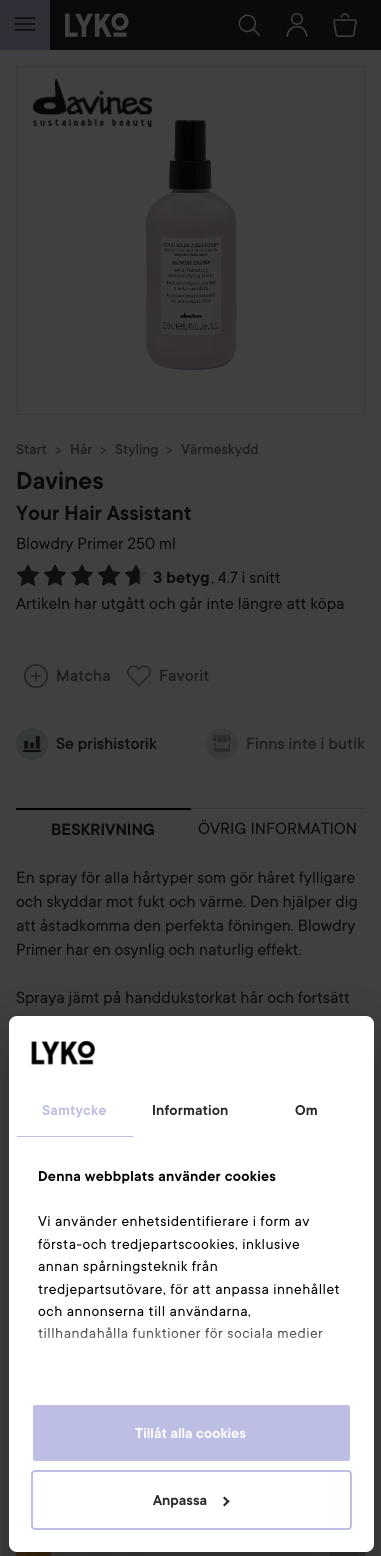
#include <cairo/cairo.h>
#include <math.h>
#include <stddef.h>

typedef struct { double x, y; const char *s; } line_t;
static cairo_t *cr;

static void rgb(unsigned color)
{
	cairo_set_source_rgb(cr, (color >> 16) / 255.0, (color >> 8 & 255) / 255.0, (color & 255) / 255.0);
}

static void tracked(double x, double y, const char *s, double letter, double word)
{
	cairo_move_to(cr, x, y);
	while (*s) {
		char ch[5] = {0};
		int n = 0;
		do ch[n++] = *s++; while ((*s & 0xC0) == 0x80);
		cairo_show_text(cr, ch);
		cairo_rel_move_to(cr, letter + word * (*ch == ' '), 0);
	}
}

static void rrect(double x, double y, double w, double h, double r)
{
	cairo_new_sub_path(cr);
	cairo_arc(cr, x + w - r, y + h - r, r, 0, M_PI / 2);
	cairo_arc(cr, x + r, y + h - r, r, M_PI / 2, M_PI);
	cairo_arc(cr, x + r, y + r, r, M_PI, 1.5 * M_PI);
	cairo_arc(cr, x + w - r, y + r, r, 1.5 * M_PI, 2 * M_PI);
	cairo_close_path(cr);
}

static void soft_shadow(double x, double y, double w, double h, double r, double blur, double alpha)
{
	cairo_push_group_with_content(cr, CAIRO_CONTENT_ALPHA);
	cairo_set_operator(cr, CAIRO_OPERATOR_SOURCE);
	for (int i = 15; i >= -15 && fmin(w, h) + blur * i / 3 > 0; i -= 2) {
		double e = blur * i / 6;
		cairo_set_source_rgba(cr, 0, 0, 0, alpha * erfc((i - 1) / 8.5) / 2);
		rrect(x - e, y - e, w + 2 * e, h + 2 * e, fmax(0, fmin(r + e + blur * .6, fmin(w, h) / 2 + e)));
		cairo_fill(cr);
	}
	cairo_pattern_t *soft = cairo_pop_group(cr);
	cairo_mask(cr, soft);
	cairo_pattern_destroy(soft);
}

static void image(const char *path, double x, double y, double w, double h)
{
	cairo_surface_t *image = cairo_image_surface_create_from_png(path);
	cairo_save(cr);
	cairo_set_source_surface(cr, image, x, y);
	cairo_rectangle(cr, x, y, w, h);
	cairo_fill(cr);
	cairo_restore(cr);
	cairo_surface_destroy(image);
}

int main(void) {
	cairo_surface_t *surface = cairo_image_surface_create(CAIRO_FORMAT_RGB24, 381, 1556);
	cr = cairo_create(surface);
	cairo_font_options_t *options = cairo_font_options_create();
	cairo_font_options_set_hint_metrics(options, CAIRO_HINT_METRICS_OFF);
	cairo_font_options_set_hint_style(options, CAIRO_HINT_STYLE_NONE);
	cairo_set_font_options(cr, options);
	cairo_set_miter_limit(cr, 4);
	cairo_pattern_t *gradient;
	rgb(0x404040);
	cairo_paint(cr);
	rgb(0x0a0a0b);
	cairo_rectangle(cr, 50, 0, 331, 50);
	cairo_fill(cr);
	rgb(0x2f2f38);
	cairo_rectangle(cr, 0, 0, 50, 50);
	cairo_fill(cr);
	image("img/1.png", 14, 17, 22, 14);
	image("img/2.png", 65, 13, 64, 24);
	image("img/3.png", 238, 14, 22, 23);
	image("img/4.png", 286, 13, 22, 24);
	image("img/5.png", 333, 13, 24, 24);
	cairo_rectangle(cr, 16.5, 66.5, 348, 348);
	rgb(0x3a3b3b);
	cairo_set_line_width(cr, 1);
	cairo_stroke(cr);
	image("img/7.png", 145, 120, 92, 250);
	image("img/6.png", 33, 79, 119, 48);
	image("img/8.png", 16, 564, 24, 22);
	image("img/8.png", 43, 564, 24, 22);
	image("img/8.png", 70, 564, 24, 22);
	image("img/8.png", 97, 564, 24, 22);
	image("img/10.png", 125, 564, 22, 22);
	image("img/9.png", 124, 564, 16, 22);
	image("img/11.png", 24, 664, 24, 24);
	image("img/12.png", 127, 665, 24, 22);
	image("img/13.png", 16, 728, 32, 32);
	image("img/14.png", 206, 728, 32, 32);
	rgb(0x000000);
	cairo_rectangle(cr, 16, 808, 175, 2);
	cairo_fill(cr);
	rgb(0x383839);
	cairo_rectangle(cr, 191, 808, 174, 1);
	cairo_fill(cr);
	image("img/15.png", 16, 1551, 175, 5);
	image("img/16.png", 191, 1552, 174, 4);
	cairo_set_source_rgba(cr, 0.251, 0.251, 0.251, 0.98);
	cairo_rectangle(cr, 51, 1552, 279, 4);
	cairo_fill(cr);
	rgb(0x000000);
	soft_shadow(9, 1048, 365, 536, 8, 34, 0.3);
	rgb(0xffffff);
	rrect(9, 1016, 365, 536, 8);
	cairo_fill(cr);
	image("img/17.png", 31, 1040, 65, 25);
	rgb(0xbcbee4);
	cairo_rectangle(cr, 17, 1136, 116, 1);
	cairo_fill(cr);
	rrect(32, 1404, 319, 58, 3);
	cairo_fill_preserve(cr);
	rgb(0xffffff);
	cairo_set_line_width(cr, 2);
	cairo_stroke(cr);
	rrect(32, 1471, 319, 58, 3);
	rgb(0xbcbee4);
	cairo_stroke(cr);
	rgb(0x27292c);
	cairo_new_path(cr);
	cairo_move_to(cr, 224.5, 1496.5);
	cairo_line_to(cr, 229.5, 1501.5);
	cairo_line_to(cr, 228, 1503);
	cairo_line_to(cr, 223, 1498);
	cairo_close_path(cr);
	cairo_fill(cr);
	cairo_new_path(cr);
	cairo_move_to(cr, 228, 1500);
	cairo_line_to(cr, 229.5, 1501.5);
	cairo_line_to(cr, 224.5, 1506.5);
	cairo_line_to(cr, 223, 1505);
	cairo_close_path(cr);
	cairo_fill(cr);
	cairo_select_font_face(cr, "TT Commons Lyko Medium", CAIRO_FONT_SLANT_NORMAL, CAIRO_FONT_WEIGHT_NORMAL);
	cairo_set_font_size(cr, 14);
	rgb(0x1a1c1f);
	cairo_move_to(cr, 16, 454);
	cairo_show_text(cr, "Start");
	cairo_select_font_face(cr, "TT Commons Lyko", CAIRO_FONT_SLANT_NORMAL, CAIRO_FONT_WEIGHT_NORMAL);
	cairo_move_to(cr, 55, 454);
	cairo_show_text(cr, ">");
	cairo_select_font_face(cr, "TT Commons Lyko Medium", CAIRO_FONT_SLANT_NORMAL, CAIRO_FONT_WEIGHT_NORMAL);
	cairo_move_to(cr, 70, 454);
	cairo_show_text(cr, "Hår");
	cairo_select_font_face(cr, "TT Commons Lyko", CAIRO_FONT_SLANT_NORMAL, CAIRO_FONT_WEIGHT_NORMAL);
	cairo_move_to(cr, 100, 454);
	cairo_show_text(cr, ">");
	cairo_select_font_face(cr, "TT Commons Lyko Medium", CAIRO_FONT_SLANT_NORMAL, CAIRO_FONT_WEIGHT_NORMAL);
	cairo_move_to(cr, 115, 454);
	cairo_show_text(cr, "Styling");
	cairo_select_font_face(cr, "TT Commons Lyko", CAIRO_FONT_SLANT_NORMAL, CAIRO_FONT_WEIGHT_NORMAL);
	cairo_move_to(cr, 166, 454);
	cairo_show_text(cr, ">");
	cairo_select_font_face(cr, "TT Commons Lyko Medium", CAIRO_FONT_SLANT_NORMAL, CAIRO_FONT_WEIGHT_NORMAL);
	cairo_move_to(cr, 181, 454);
	cairo_show_text(cr, "Värmeskydd");
	cairo_select_font_face(cr, "TT Commons Lyko SemiBold", CAIRO_FONT_SLANT_NORMAL, CAIRO_FONT_WEIGHT_NORMAL);
	cairo_set_font_size(cr, 24);
	rgb(0x0a0a0b);
	cairo_move_to(cr, 16, 489);
	cairo_show_text(cr, "Davines");
	cairo_set_font_size(cr, 20);
	cairo_move_to(cr, 16, 520);
	cairo_show_text(cr, "Your Hair Assistant");
	cairo_select_font_face(cr, "TT Commons Lyko", CAIRO_FONT_SLANT_NORMAL, CAIRO_FONT_WEIGHT_NORMAL);
	cairo_set_font_size(cr, 16);
	cairo_move_to(cr, 16, 549);
	cairo_show_text(cr, "Blowdry Primer 250 ml");
	cairo_select_font_face(cr, "TT Commons Lyko SemiBold", CAIRO_FONT_SLANT_NORMAL, CAIRO_FONT_WEIGHT_NORMAL);
	cairo_move_to(cr, 153, 583);
	cairo_show_text(cr, "3 betyg");
	cairo_select_font_face(cr, "TT Commons Lyko", CAIRO_FONT_SLANT_NORMAL, CAIRO_FONT_WEIGHT_NORMAL);
	cairo_move_to(cr, 211, 583);
	cairo_show_text(cr, ", 4.7 i snitt");
	cairo_move_to(cr, 16, 609);
	cairo_show_text(cr, "Artikeln har utgått och går inte längre att köpa");
	cairo_select_font_face(cr, "TT Commons Lyko Medium", CAIRO_FONT_SLANT_NORMAL, CAIRO_FONT_WEIGHT_NORMAL);
	rgb(0x1a1c1f);
	cairo_move_to(cr, 56, 681);
	cairo_show_text(cr, "Matcha");
	cairo_move_to(cr, 159, 681);
	cairo_show_text(cr, "Favorit");
	rgb(0x0a0a0b);
	cairo_move_to(cr, 56, 749);
	cairo_show_text(cr, "Se prishistorik");
	rgb(0x1a1c1f);
	cairo_move_to(cr, 246, 749);
	cairo_show_text(cr, "Finns inte i butik");
	cairo_select_font_face(cr, "TT Commons Lyko SemiBold", CAIRO_FONT_SLANT_NORMAL, CAIRO_FONT_WEIGHT_NORMAL);
	rgb(0x0a0a0b);
	cairo_move_to(cr, 51, 835);
	cairo_show_text(cr, "BESKRIVNING");
	cairo_select_font_face(cr, "TT Commons Lyko", CAIRO_FONT_SLANT_NORMAL, CAIRO_FONT_WEIGHT_NORMAL);
	{
		static const line_t items[] = {
			{198, 834, "ÖVRIG INFORMATION"},
			{16, 883, "En spray för alla hårtyper som gör håret fylligare"},
			{16, 907, "och skyddar mot fukt och värme. Den hjälper dig"},
			{16, 931, "att åstadkomma den perfekta föningen. Blowdry"},
			{16, 955, "Primer har en osynlig och naturlig effekt."},
			{16, 1003, "Spraya jämt på handdukstorkat hår och fortsätt"},
		};
		for (size_t i = 0; i < sizeof items / sizeof *items; i++) {
			cairo_move_to(cr, items[i].x, items[i].y);
			cairo_show_text(cr, items[i].s);
		}
	}
	cairo_select_font_face(cr, "TT Commons Lyko SemiBold", CAIRO_FONT_SLANT_NORMAL, CAIRO_FONT_WEIGHT_NORMAL);
	cairo_set_font_size(cr, 14);
	rgb(0xbcbee4);
	tracked(42, 1115, "Samtycke", 0.1, 0);
	rgb(0x27292c);
	tracked(152, 1115, "Information", 0.1, 0);
	tracked(295, 1115, "Om", 0.1, 0);
	rgb(0x000000);
	tracked(38, 1181, "Denna webbplats använder cookies", 0.25, 0);
	cairo_select_font_face(cr, "TT Commons Lyko", CAIRO_FONT_SLANT_NORMAL, CAIRO_FONT_WEIGHT_NORMAL);
	{
		static const line_t items[] = {
			{38, 1226, "Vi använder enhetsidentifierare i form av"},
			{38, 1249, "första-och tredjepartscookies, inklusive"},
			{38, 1271, "annan spårningsteknik från"},
			{38, 1294, "tredjepartsutövare, för att anpassa innehållet"},
			{38, 1316, "och annonserna till användarna,"},
			{38, 1338, "tillhandahålla funktioner för sociala medier"},
		};
		for (size_t i = 0; i < sizeof items / sizeof *items; i++) {
			tracked(items[i].x, items[i].y, items[i].s, 0.5, 0);
		}
	}
	gradient = cairo_pattern_create_linear(185, 1389, 185, 1319);
	cairo_pattern_add_color_stop_rgba(gradient, 0, 1, 1, 1, 1);
	cairo_pattern_add_color_stop_rgba(gradient, 0.5, 1, 1, 1, 0.8);
	cairo_pattern_add_color_stop_rgba(gradient, 1, 1, 1, 1, 0);
	cairo_set_source(cr, gradient);
	cairo_pattern_destroy(gradient);
	cairo_rectangle(cr, 38, 1327, 285, 12);
	cairo_fill(cr);
	cairo_select_font_face(cr, "TT Commons Lyko SemiBold", CAIRO_FONT_SLANT_NORMAL, CAIRO_FONT_WEIGHT_NORMAL);
	rgb(0xffffff);
	cairo_move_to(cr, 135, 1438);
	cairo_show_text(cr, "Tillåt alla cookies");
	rgb(0x27292c);
	cairo_move_to(cr, 153, 1505);
	cairo_show_text(cr, "Anpassa");
	cairo_surface_write_to_png(surface, "page.png");
	cairo_font_options_destroy(options);
	cairo_destroy(cr);
	cairo_surface_destroy(surface);
	return 0;
}
